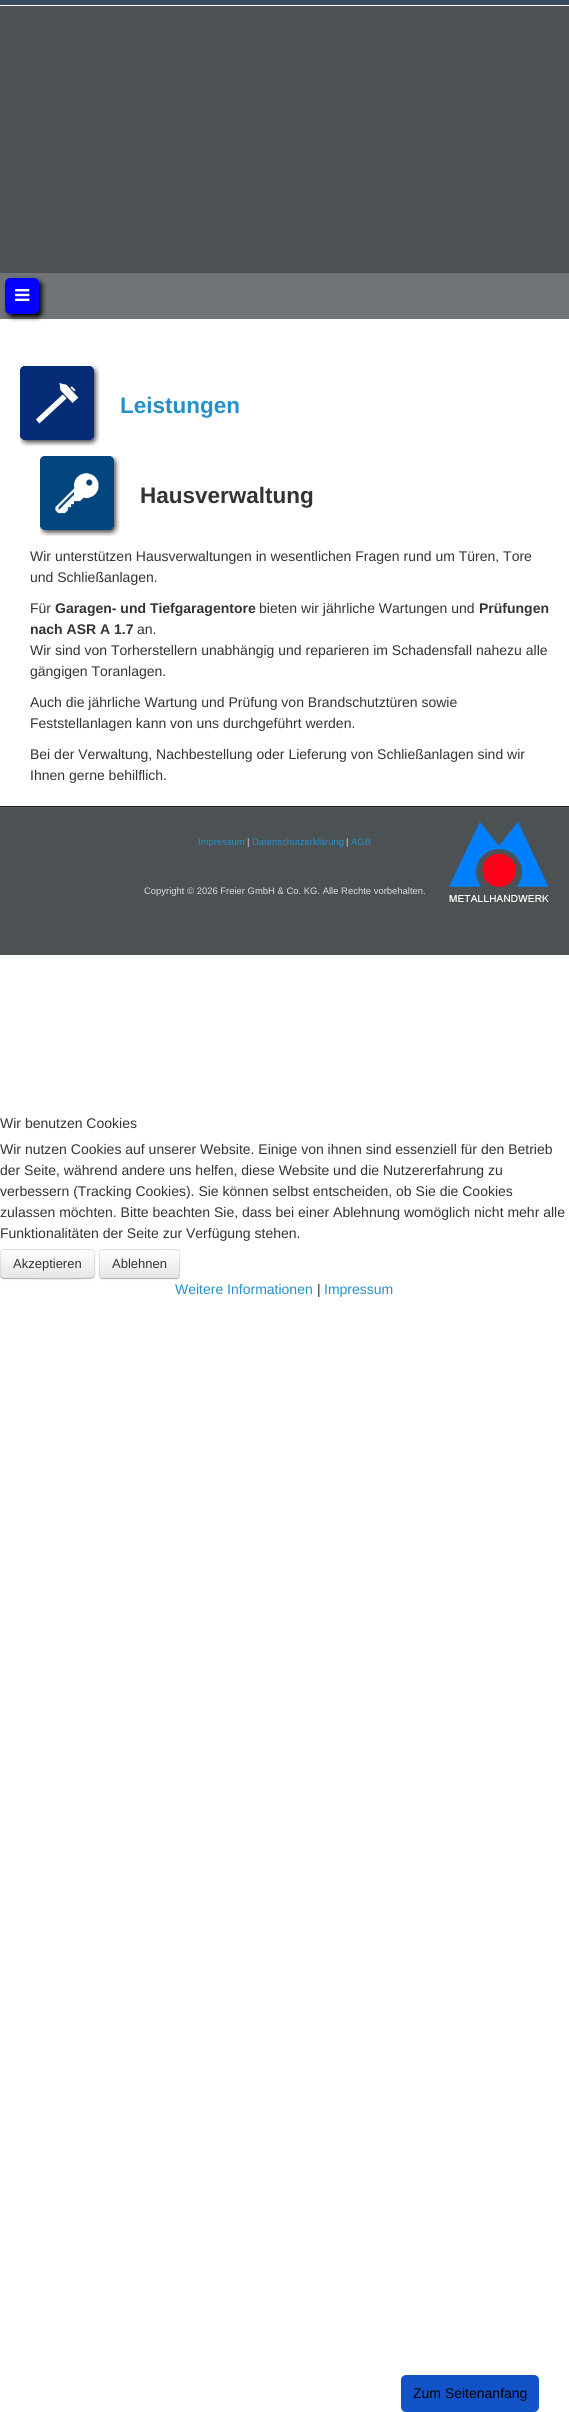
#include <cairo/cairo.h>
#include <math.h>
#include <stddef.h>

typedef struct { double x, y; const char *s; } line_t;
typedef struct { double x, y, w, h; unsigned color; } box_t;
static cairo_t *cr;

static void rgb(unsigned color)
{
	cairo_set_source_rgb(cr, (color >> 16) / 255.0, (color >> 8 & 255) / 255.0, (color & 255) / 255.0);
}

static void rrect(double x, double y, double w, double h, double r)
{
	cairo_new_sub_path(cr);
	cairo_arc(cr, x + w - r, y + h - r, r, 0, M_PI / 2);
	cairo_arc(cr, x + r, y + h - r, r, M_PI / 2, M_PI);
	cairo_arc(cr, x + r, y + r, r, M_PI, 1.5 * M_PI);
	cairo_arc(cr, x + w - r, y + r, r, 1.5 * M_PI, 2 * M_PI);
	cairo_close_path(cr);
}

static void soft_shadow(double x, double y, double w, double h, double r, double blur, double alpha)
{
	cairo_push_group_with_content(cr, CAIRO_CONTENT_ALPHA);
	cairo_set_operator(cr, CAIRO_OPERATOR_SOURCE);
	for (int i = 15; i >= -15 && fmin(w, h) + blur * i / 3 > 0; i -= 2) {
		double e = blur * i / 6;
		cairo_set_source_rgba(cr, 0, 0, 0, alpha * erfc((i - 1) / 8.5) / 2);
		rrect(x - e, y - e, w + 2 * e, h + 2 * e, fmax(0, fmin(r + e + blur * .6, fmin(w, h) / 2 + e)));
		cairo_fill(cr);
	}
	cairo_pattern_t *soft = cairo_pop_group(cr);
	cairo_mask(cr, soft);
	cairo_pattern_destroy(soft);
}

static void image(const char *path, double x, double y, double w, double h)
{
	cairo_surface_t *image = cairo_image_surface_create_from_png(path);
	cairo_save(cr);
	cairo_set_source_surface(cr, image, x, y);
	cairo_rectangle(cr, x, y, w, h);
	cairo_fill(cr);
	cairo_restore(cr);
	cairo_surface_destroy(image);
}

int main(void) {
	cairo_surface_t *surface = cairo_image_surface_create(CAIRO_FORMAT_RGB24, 569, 2412);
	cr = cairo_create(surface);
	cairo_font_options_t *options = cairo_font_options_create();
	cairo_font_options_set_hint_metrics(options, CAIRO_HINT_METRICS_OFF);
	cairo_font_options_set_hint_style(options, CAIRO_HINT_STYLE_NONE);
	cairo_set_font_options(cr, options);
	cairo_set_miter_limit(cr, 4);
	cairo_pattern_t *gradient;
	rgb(0xffffff);
	cairo_paint(cr);
	{
		static const box_t items[] = {
			{0, 6, 569, 267, 0x4c5154},
			{0, 0, 569, 5, 0x374a5f},
			{0, 273, 569, 46, 0x707476},
		};
		for (size_t i = 0; i < sizeof items / sizeof *items; i++) {
			rgb(items[i].color);
			cairo_rectangle(cr, items[i].x, items[i].y, items[i].w, items[i].h);
			cairo_fill(cr);
		}
	}
	rgb(0x000000);
	soft_shadow(8, 281, 34, 36, 5, 2.5, 1);
	rgb(0x0600ff);
	cairo_rectangle(cr, 15, 286, 14, 20);
	cairo_fill(cr);
	rrect(9, 282, 26, 28, 1);
	cairo_set_line_width(cr, 8);
	cairo_stroke(cr);
	cairo_rectangle(cr, 29, 281, 2, 31);
	cairo_fill(cr);
	cairo_rectangle(cr, 13, 281, 2, 31);
	cairo_fill(cr);
	image("img/1.png", 15, 289, 15, 12);
	image("img/2.png", 20, 366, 80, 80);
	image("img/3.png", 40, 456, 80, 80);
	{
		static const box_t items[] = {
			{0, 808, 569, 147, 0x4c5154},
			{0, 807, 569, 1, 0x585858},
			{0, 806, 569, 1, 0x222222},
		};
		for (size_t i = 0; i < sizeof items / sizeof *items; i++) {
			rgb(items[i].color);
			cairo_rectangle(cr, items[i].x, items[i].y, items[i].w, items[i].h);
			cairo_fill(cr);
		}
	}
	image("img/4.png", 449, 822, 100, 80);
	rgb(0x000000);
	soft_shadow(0, 1250, 95, 30, 4, 1, 0.05);
	rgb(0xf5f5f5);
	rrect(0, 1249, 95, 30, 4);
	cairo_fill(cr);
	cairo_save(cr);
	rrect(0, 1249, 95, 30, 4);
	cairo_clip(cr);
	gradient = cairo_pattern_create_linear(48, 1250, 48, 1278);
	cairo_pattern_add_color_stop_rgba(gradient, 0, 1, 1, 1, 1);
	cairo_pattern_add_color_stop_rgba(gradient, 1, 0.902, 0.902, 0.902, 1);
	cairo_set_source(cr, gradient);
	cairo_pattern_destroy(gradient);
	cairo_rectangle(cr, 0, 1250, 95, 28);
	cairo_fill(cr);
	cairo_restore(cr);
	cairo_new_path(cr);
	cairo_move_to(cr, 93.5, 1277.5);
	cairo_line_to(cr, 93, 1277.5);
	cairo_curve_to(cr, 91, 1279.5, 27, 1278.5, 18.5, 1278.5);
	cairo_line_to(cr, 4, 1278.5);
	cairo_line_to(cr, 1.5, 1277.5);
	rgb(0xb3b3b3);
	cairo_set_line_width(cr, 1);
	cairo_stroke(cr);
	cairo_new_path(cr);
	cairo_move_to(cr, 1.5, 1277.5);
	cairo_curve_to(cr, -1, 1275, 0.5, 1270.5, 0.5, 1267.5);
	cairo_curve_to(cr, 0.5, 1246.5, -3, 1249.5, 18.5, 1249.5);
	cairo_line_to(cr, 76.5, 1249.5);
	cairo_curve_to(cr, 98, 1249.5, 94.5, 1246.5, 94.5, 1267.5);
	cairo_curve_to(cr, 94.5, 1270.5, 96, 1275, 93.5, 1277.5);
	cairo_set_source_rgba(cr, 0, 0, 0, 0.1);
	cairo_stroke(cr);
	rgb(0x000000);
	soft_shadow(99, 1250, 81, 30, 4, 1, 0.05);
	rgb(0xf5f5f5);
	rrect(99, 1249, 81, 30, 4);
	cairo_fill(cr);
	cairo_save(cr);
	rrect(99, 1249, 81, 30, 4);
	cairo_clip(cr);
	gradient = cairo_pattern_create_linear(140, 1250, 140, 1278);
	cairo_pattern_add_color_stop_rgba(gradient, 0, 1, 1, 1, 1);
	cairo_pattern_add_color_stop_rgba(gradient, 1, 0.902, 0.902, 0.902, 1);
	cairo_set_source(cr, gradient);
	cairo_pattern_destroy(gradient);
	cairo_rectangle(cr, 99, 1250, 81, 28);
	cairo_fill(cr);
	cairo_restore(cr);
	cairo_new_path(cr);
	cairo_move_to(cr, 178.5, 1277.5);
	cairo_curve_to(cr, 178, 1278, 177, 1278.5, 176, 1278.5);
	cairo_line_to(cr, 103, 1278.5);
	cairo_curve_to(cr, 102, 1278.5, 101, 1278, 100.5, 1277.5);
	rgb(0xb3b3b3);
	cairo_stroke(cr);
	cairo_new_path(cr);
	cairo_move_to(cr, 100.5, 1277.5);
	cairo_curve_to(cr, 98.5, 1275.5, 99.5, 1267, 99.5, 1264);
	cairo_curve_to(cr, 99.5, 1247, 97, 1249.5, 115, 1249.5);
	cairo_line_to(cr, 164, 1249.5);
	cairo_curve_to(cr, 182, 1249.5, 179.5, 1247, 179.5, 1264);
	cairo_curve_to(cr, 179.5, 1267, 180.5, 1275.5, 178.5, 1277.5);
	cairo_set_source_rgba(cr, 0, 0, 0, 0.1);
	cairo_stroke(cr);
	rgb(0x1353c8);
	rrect(401, 2375, 138, 37, 5);
	cairo_fill(cr);
	cairo_select_font_face(cr, "Liberation Sans", CAIRO_FONT_SLANT_NORMAL, CAIRO_FONT_WEIGHT_BOLD);
	cairo_set_font_size(cr, 22.5);
	rgb(0x2491ca);
	cairo_move_to(cr, 120, 413);
	cairo_show_text(cr, "Leistungen");
	rgb(0x333333);
	cairo_move_to(cr, 140, 503);
	cairo_show_text(cr, "Hausverwaltung");
	cairo_select_font_face(cr, "Liberation Sans", CAIRO_FONT_SLANT_NORMAL, CAIRO_FONT_WEIGHT_NORMAL);
	cairo_set_font_size(cr, 14);
	{
		static const line_t items[] = {
			{30, 561, "Wir unterstützen Hausverwaltungen in wesentlichen Fragen rund um Türen, Tore"},
			{30, 582, "und Schließanlagen."},
			{30, 613, "Für"},
		};
		for (size_t i = 0; i < sizeof items / sizeof *items; i++) {
			cairo_move_to(cr, items[i].x, items[i].y);
			cairo_show_text(cr, items[i].s);
		}
	}
	cairo_select_font_face(cr, "Liberation Sans", CAIRO_FONT_SLANT_NORMAL, CAIRO_FONT_WEIGHT_BOLD);
	cairo_move_to(cr, 55, 613);
	cairo_show_text(cr, "Garagen- und Tiefgaragentore");
	cairo_select_font_face(cr, "Liberation Sans", CAIRO_FONT_SLANT_NORMAL, CAIRO_FONT_WEIGHT_NORMAL);
	cairo_move_to(cr, 259, 613);
	cairo_show_text(cr, "bieten wir jährliche Wartungen und");
	cairo_select_font_face(cr, "Liberation Sans", CAIRO_FONT_SLANT_NORMAL, CAIRO_FONT_WEIGHT_BOLD);
	cairo_move_to(cr, 479, 613);
	cairo_show_text(cr, "Prüfungen");
	cairo_move_to(cr, 30, 634);
	cairo_show_text(cr, "nach ASR A 1.7");
	cairo_select_font_face(cr, "Liberation Sans", CAIRO_FONT_SLANT_NORMAL, CAIRO_FONT_WEIGHT_NORMAL);
	{
		static const line_t items[] = {
			{137, 634, "an."},
			{30, 655, "Wir sind von Torherstellern unabhängig und reparieren im Schadensfall nahezu alle"},
			{30, 676, "gängigen Toranlagen."},
			{30, 707, "Auch die jährliche Wartung und Prüfung von Brandschutztüren sowie"},
			{30, 728, "Feststellanlagen kann von uns durchgeführt werden."},
			{30, 759, "Bei der Verwaltung, Nachbestellung oder Lieferung von Schließanlagen sind wir"},
			{30, 780, "Ihnen gerne behilflich."},
		};
		for (size_t i = 0; i < sizeof items / sizeof *items; i++) {
			cairo_move_to(cr, items[i].x, items[i].y);
			cairo_show_text(cr, items[i].s);
		}
	}
	cairo_set_font_size(cr, 9.45);
	rgb(0x2491ca);
	cairo_move_to(cr, 198, 845);
	cairo_show_text(cr, "Impressum");
	rgb(0xdddddd);
	cairo_move_to(cr, 247, 845);
	cairo_show_text(cr, "|");
	rgb(0x2491ca);
	cairo_move_to(cr, 252, 845);
	cairo_show_text(cr, "Datenschutzerklärung");
	rgb(0xdddddd);
	cairo_move_to(cr, 346, 845);
	cairo_show_text(cr, "|");
	rgb(0x2491ca);
	cairo_move_to(cr, 351, 845);
	cairo_show_text(cr, "AGB");
	rgb(0xdddddd);
	cairo_move_to(cr, 144, 894);
	cairo_show_text(cr, "Copyright © 2026 Freier GmbH & Co. KG. Alle Rechte vorbehalten.");
	cairo_set_font_size(cr, 14);
	rgb(0x333333);
	{
		static const line_t items[] = {
			{0, 1128, "Wir benutzen Cookies"},
			{0, 1154, "Wir nutzen Cookies auf unserer Website. Einige von ihnen sind essenziell für den Betrieb"},
			{0, 1175, "der Seite, während andere uns helfen, diese Website und die Nutzererfahrung zu"},
			{0, 1196, "verbessern (Tracking Cookies). Sie können selbst entscheiden, ob Sie die Cookies"},
			{0, 1217, "zulassen möchten. Bitte beachten Sie, dass bei einer Ablehnung womöglich nicht mehr alle"},
			{0, 1238, "Funktionalitäten der Seite zur Verfügung stehen."},
		};
		for (size_t i = 0; i < sizeof items / sizeof *items; i++) {
			cairo_move_to(cr, items[i].x, items[i].y);
			cairo_show_text(cr, items[i].s);
		}
	}
	cairo_set_font_size(cr, 13);
	cairo_move_to(cr, 13, 1268);
	cairo_show_text(cr, "Akzeptieren");
	cairo_move_to(cr, 112, 1268);
	cairo_show_text(cr, "Ablehnen");
	cairo_set_font_size(cr, 14);
	rgb(0x2491ca);
	cairo_move_to(cr, 175, 1294);
	cairo_show_text(cr, "Weitere Informationen");
	rgb(0x333333);
	cairo_move_to(cr, 317, 1294);
	cairo_show_text(cr, "|");
	rgb(0x2491ca);
	cairo_move_to(cr, 324, 1294);
	cairo_show_text(cr, "Impressum");
	rgb(0x000000);
	cairo_move_to(cr, 413, 2398);
	cairo_show_text(cr, "Zum Seitenanfang");
	cairo_surface_write_to_png(surface, "page.png");
	cairo_font_options_destroy(options);
	cairo_destroy(cr);
	cairo_surface_destroy(surface);
	return 0;
}
